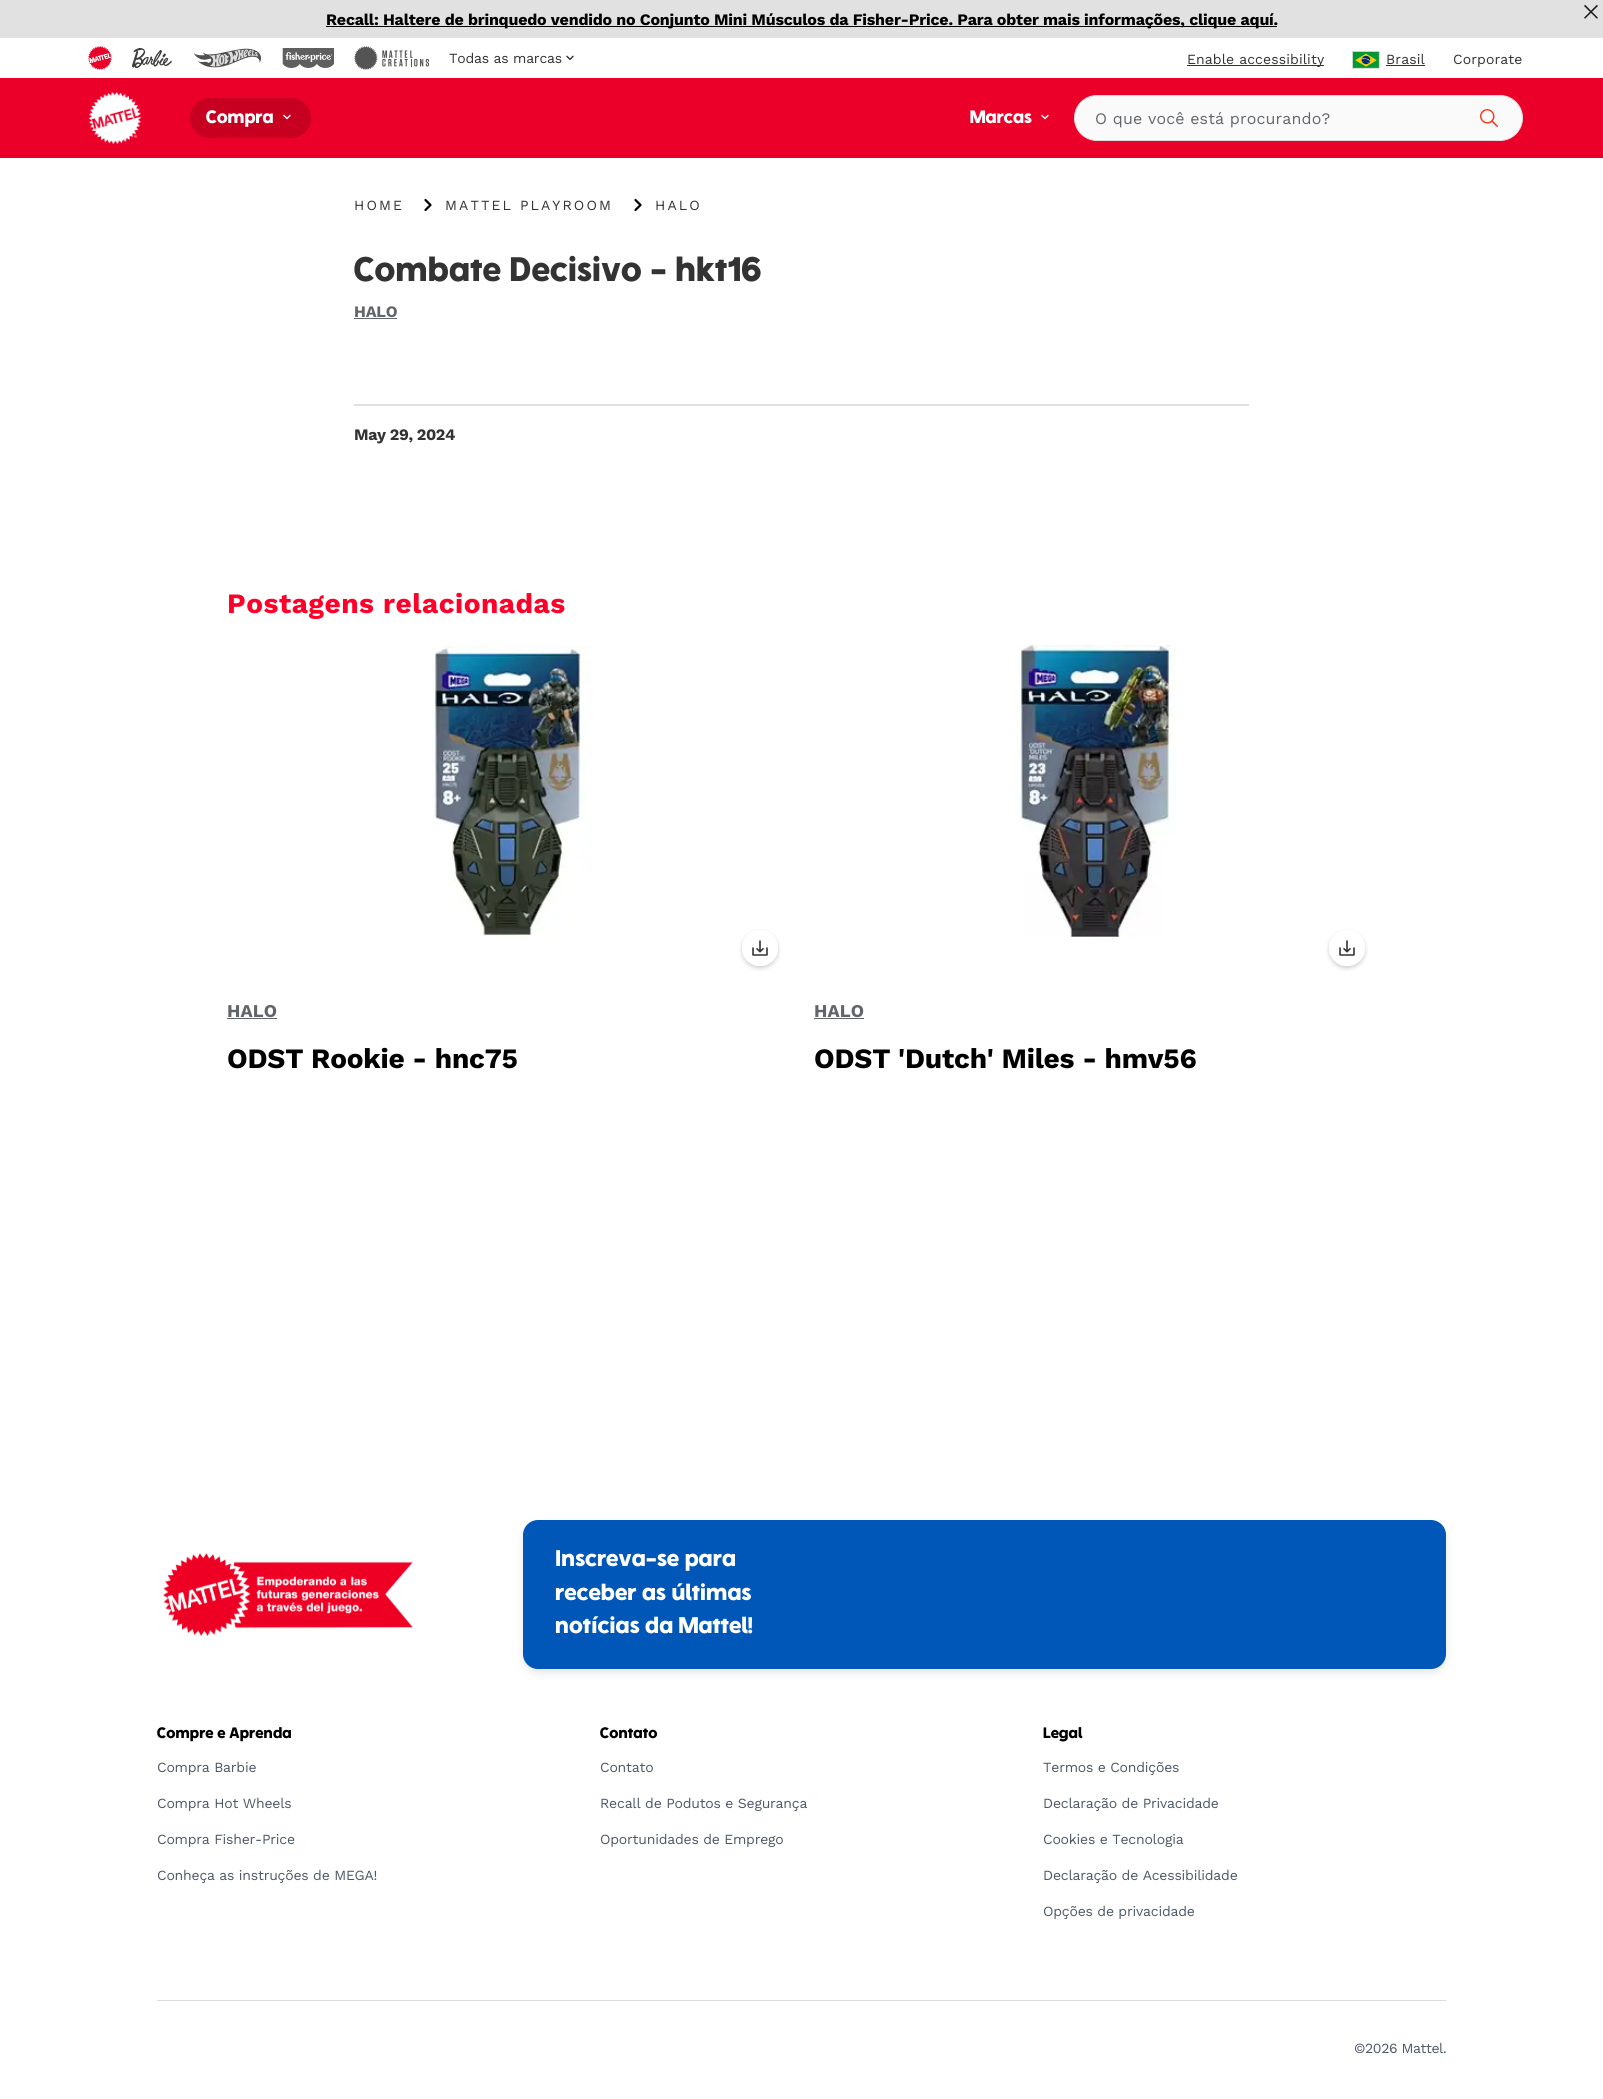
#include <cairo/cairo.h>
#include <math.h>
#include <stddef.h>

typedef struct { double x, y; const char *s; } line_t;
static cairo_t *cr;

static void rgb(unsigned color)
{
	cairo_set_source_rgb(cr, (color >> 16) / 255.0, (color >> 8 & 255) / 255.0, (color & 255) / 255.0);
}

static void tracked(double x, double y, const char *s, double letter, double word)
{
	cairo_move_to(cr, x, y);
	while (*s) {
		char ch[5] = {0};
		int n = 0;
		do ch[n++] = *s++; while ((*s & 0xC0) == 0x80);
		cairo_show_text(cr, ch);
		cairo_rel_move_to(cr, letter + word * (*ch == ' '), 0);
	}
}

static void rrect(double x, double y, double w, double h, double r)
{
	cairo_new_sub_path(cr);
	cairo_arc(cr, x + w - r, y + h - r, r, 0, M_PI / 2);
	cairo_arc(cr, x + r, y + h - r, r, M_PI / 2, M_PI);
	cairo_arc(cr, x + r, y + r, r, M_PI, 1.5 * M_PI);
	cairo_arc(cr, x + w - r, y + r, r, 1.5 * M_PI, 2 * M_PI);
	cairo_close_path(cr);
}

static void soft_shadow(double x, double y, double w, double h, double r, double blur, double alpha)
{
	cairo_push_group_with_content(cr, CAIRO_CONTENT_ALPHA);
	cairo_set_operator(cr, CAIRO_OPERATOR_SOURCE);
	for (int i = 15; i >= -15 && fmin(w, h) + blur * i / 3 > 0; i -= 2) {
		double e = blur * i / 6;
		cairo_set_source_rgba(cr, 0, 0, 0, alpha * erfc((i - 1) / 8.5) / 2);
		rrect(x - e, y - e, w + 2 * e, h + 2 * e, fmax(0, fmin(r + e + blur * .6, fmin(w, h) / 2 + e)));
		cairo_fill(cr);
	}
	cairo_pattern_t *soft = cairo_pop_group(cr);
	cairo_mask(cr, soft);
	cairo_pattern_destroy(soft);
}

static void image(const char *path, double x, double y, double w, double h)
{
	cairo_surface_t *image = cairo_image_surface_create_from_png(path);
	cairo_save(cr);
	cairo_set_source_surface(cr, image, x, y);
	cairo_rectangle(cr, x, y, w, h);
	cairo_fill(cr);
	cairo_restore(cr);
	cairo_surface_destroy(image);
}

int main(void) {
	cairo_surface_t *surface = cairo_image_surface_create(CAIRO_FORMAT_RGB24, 1603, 2099);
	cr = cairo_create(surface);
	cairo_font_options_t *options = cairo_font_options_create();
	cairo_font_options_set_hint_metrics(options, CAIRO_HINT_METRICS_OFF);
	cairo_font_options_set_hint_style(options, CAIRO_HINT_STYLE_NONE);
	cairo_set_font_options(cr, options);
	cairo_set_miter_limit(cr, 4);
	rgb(0xffffff);
	cairo_paint(cr);
	rgb(0xe1e1e1);
	cairo_rectangle(cr, 0, 0, 1603, 38);
	cairo_fill(cr);
	image("img/1.png", 1584, 4, 14, 15);
	rgb(0x000000);
	cairo_rectangle(cr, 326, 26, 951, 1);
	cairo_fill(cr);
	image("img/2.png", 88, 46, 24, 24);
	image("img/3.png", 132, 48, 40, 20);
	image("img/4.png", 193, 48, 68, 20);
	image("img/5.png", 282, 48, 52, 20);
	image("img/6.png", 354, 46, 75, 24);
	image("img/7.png", 566, 55, 8, 5);
	rgb(0x333333);
	cairo_rectangle(cr, 1187, 65, 137, 1);
	cairo_fill(cr);
	image("img/8.png", 1352, 51, 28, 18);
	cairo_rectangle(cr, 1386, 65, 39, 1);
	cairo_fill(cr);
	rgb(0xea0028);
	cairo_rectangle(cr, 0, 78, 1603, 80);
	cairo_fill(cr);
	image("img/9.png", 88, 92, 54, 52);
	rgb(0xc70022);
	rrect(190, 98, 121, 40, 20);
	cairo_fill(cr);
	image("img/10.png", 283, 114, 8, 6);
	image("img/11.png", 1041, 114, 8, 6);
	rgb(0xfafafa);
	rrect(1074.5, 95.5, 448, 45, 22.5);
	cairo_fill_preserve(cr);
	rgb(0xdcdcdc);
	cairo_set_line_width(cr, 1);
	cairo_stroke(cr);
	image("img/12.png", 1480, 109, 18, 18);
	image("img/13.png", 424, 198, 8, 14);
	image("img/13.png", 634, 198, 8, 14);
	rgb(0x62656a);
	cairo_rectangle(cr, 354, 318, 43, 1);
	cairo_fill(cr);
	rgb(0xe1e1e1);
	cairo_rectangle(cr, 354, 404, 895, 2);
	cairo_fill(cr);
	image("img/14.png", 432, 645, 160, 292);
	image("img/15.png", 739, 929, 42, 42);
	rgb(0x62656a);
	cairo_rectangle(cr, 227, 1018, 50, 1);
	cairo_fill(cr);
	image("img/16.png", 1015, 645, 162, 292);
	image("img/15.png", 1326, 929, 42, 42);
	cairo_rectangle(cr, 814, 1018, 50, 1);
	cairo_fill(cr);
	image("img/17.png", 163, 1551, 259, 88);
	rgb(0x000000);
	soft_shadow(523, 1524, 923, 149, 15, 4, 0.1);
	rgb(0x0057b8);
	rrect(523, 1520, 923, 149, 15);
	cairo_fill(cr);
	rgb(0xdcdcdc);
	cairo_rectangle(cr, 157, 2000, 1289, 1);
	cairo_fill(cr);
	cairo_select_font_face(cr, "Work Sans", CAIRO_FONT_SLANT_NORMAL, CAIRO_FONT_WEIGHT_BOLD);
	cairo_set_font_size(cr, 16);
	rgb(0x000000);
	tracked(326, 25, "Recall: Haltere de brinquedo vendido no Conjunto Mini Músculos da Fisher-Price. Para obter mais informações, clique aquí.", -0.2, 0);
	cairo_select_font_face(cr, "Work Sans", CAIRO_FONT_SLANT_NORMAL, CAIRO_FONT_WEIGHT_NORMAL);
	cairo_set_font_size(cr, 14);
	rgb(0x333333);
	tracked(449, 63, "Todas as marcas", -0.2, 0);
	tracked(1187, 64, "Enable accessibility", 0.1, 0);
	tracked(1386, 64, "Brasil", 0.15, 0);
	tracked(1453, 64, "Corporate", 0.1, 0);
	cairo_select_font_face(cr, "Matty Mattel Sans", CAIRO_FONT_SLANT_NORMAL, CAIRO_FONT_WEIGHT_BOLD);
	cairo_set_font_size(cr, 19);
	rgb(0xffffff);
	cairo_move_to(cr, 206, 123);
	cairo_show_text(cr, "Compra");
	cairo_save(cr);
	cairo_rectangle(cr, 970, 107, 89, 22);
	cairo_clip(cr);
	cairo_move_to(cr, 970, 123);
	cairo_show_text(cr, "Marcas");
	cairo_restore(cr);
	cairo_select_font_face(cr, "Work Sans", CAIRO_FONT_SLANT_NORMAL, CAIRO_FONT_WEIGHT_NORMAL);
	cairo_set_font_size(cr, 16);
	rgb(0x62656a);
	tracked(1095, 124, "O que você está procurando?", 0.15, 0);
	cairo_set_font_size(cr, 14);
	rgb(0x333333);
	{
		static const line_t items[] = {
			{354, 210, "HOME"},
			{445, 210, "MATTEL PLAYROOM"},
			{655, 210, "HALO"},
		};
		for (size_t i = 0; i < sizeof items / sizeof *items; i++) {
			tracked(items[i].x, items[i].y, items[i].s, 2.1, 0);
		}
	}
	cairo_select_font_face(cr, "Matty Mattel Sans", CAIRO_FONT_SLANT_NORMAL, CAIRO_FONT_WEIGHT_BOLD);
	cairo_set_font_size(cr, 36);
	tracked(354, 281, "Combate Decisivo - hkt16", 0.3, 0);
	cairo_select_font_face(cr, "Work Sans", CAIRO_FONT_SLANT_NORMAL, CAIRO_FONT_WEIGHT_BOLD);
	cairo_set_font_size(cr, 16);
	rgb(0x62656a);
	tracked(354, 317, "HALO", -0.2, 0);
	rgb(0x333333);
	tracked(354, 440, "May 29, 2024", -0.4, 0);
	cairo_set_font_size(cr, 28);
	rgb(0xff0028);
	tracked(227, 613, "Postagens relacionadas", 0.5, 0);
	cairo_set_font_size(cr, 18);
	rgb(0x62656a);
	tracked(227, 1017, "HALO", 0.1, 0);
	cairo_set_font_size(cr, 28);
	rgb(0x000000);
	tracked(227, 1068, "ODST Rookie - hnc75", -0.2, 0);
	cairo_set_font_size(cr, 18);
	rgb(0x62656a);
	tracked(814, 1017, "HALO", 0.1, 0);
	cairo_set_font_size(cr, 28);
	rgb(0x000000);
	tracked(814, 1068, "ODST 'Dutch' Miles - hmv56", -0.2, 0);
	cairo_select_font_face(cr, "Matty Mattel Sans", CAIRO_FONT_SLANT_NORMAL, CAIRO_FONT_WEIGHT_BOLD);
	cairo_set_font_size(cr, 24);
	rgb(0xffffff);
	{
		static const line_t items[] = {
			{555, 1566, "Inscreva-se para"},
			{555, 1600, "receber as últimas"},
			{555, 1633, "notícias da Mattel!"},
		};
		for (size_t i = 0; i < sizeof items / sizeof *items; i++) {
			tracked(items[i].x, items[i].y, items[i].s, 0.15, 0);
		}
	}
	cairo_set_font_size(cr, 16);
	rgb(0x000000);
	tracked(157, 1738, "Compre e Aprenda", 0.15, 0);
	cairo_select_font_face(cr, "Work Sans", CAIRO_FONT_SLANT_NORMAL, CAIRO_FONT_WEIGHT_NORMAL);
	cairo_set_font_size(cr, 14);
	rgb(0x4d5866);
	{
		static const line_t items[] = {
			{157, 1772, "Compra Barbie"},
			{157, 1808, "Compra Hot Wheels"},
			{157, 1844, "Compra Fisher-Price"},
			{157, 1880, "Conheça as instruções de MEGA!"},
		};
		for (size_t i = 0; i < sizeof items / sizeof *items; i++) {
			tracked(items[i].x, items[i].y, items[i].s, -0.2, 0);
		}
	}
	cairo_select_font_face(cr, "Matty Mattel Sans", CAIRO_FONT_SLANT_NORMAL, CAIRO_FONT_WEIGHT_BOLD);
	cairo_set_font_size(cr, 16);
	rgb(0x000000);
	tracked(600, 1738, "Contato", 0.15, 0);
	cairo_select_font_face(cr, "Work Sans", CAIRO_FONT_SLANT_NORMAL, CAIRO_FONT_WEIGHT_NORMAL);
	cairo_set_font_size(cr, 14);
	rgb(0x4d5866);
	{
		static const line_t items[] = {
			{600, 1772, "Contato"},
			{600, 1808, "Recall de Podutos e Segurança"},
			{600, 1844, "Oportunidades de Emprego"},
		};
		for (size_t i = 0; i < sizeof items / sizeof *items; i++) {
			tracked(items[i].x, items[i].y, items[i].s, -0.2, 0);
		}
	}
	cairo_select_font_face(cr, "Matty Mattel Sans", CAIRO_FONT_SLANT_NORMAL, CAIRO_FONT_WEIGHT_BOLD);
	cairo_set_font_size(cr, 16);
	rgb(0x000000);
	tracked(1043, 1738, "Legal", 0.15, 0);
	cairo_select_font_face(cr, "Work Sans", CAIRO_FONT_SLANT_NORMAL, CAIRO_FONT_WEIGHT_NORMAL);
	cairo_set_font_size(cr, 14);
	rgb(0x4d5866);
	{
		static const line_t items[] = {
			{1043, 1772, "Termos e Condições"},
			{1043, 1808, "Declaração de Privacidade"},
			{1043, 1844, "Cookies e Tecnologia"},
			{1043, 1880, "Declaração de Acessibilidade"},
			{1043, 1916, "Opções de privacidade"},
		};
		for (size_t i = 0; i < sizeof items / sizeof *items; i++) {
			tracked(items[i].x, items[i].y, items[i].s, -0.2, 0);
		}
	}
	tracked(1354, 2053, "©2026 Mattel.", -0.4, 0);
	cairo_surface_write_to_png(surface, "page.png");
	cairo_font_options_destroy(options);
	cairo_destroy(cr);
	cairo_surface_destroy(surface);
	return 0;
}
